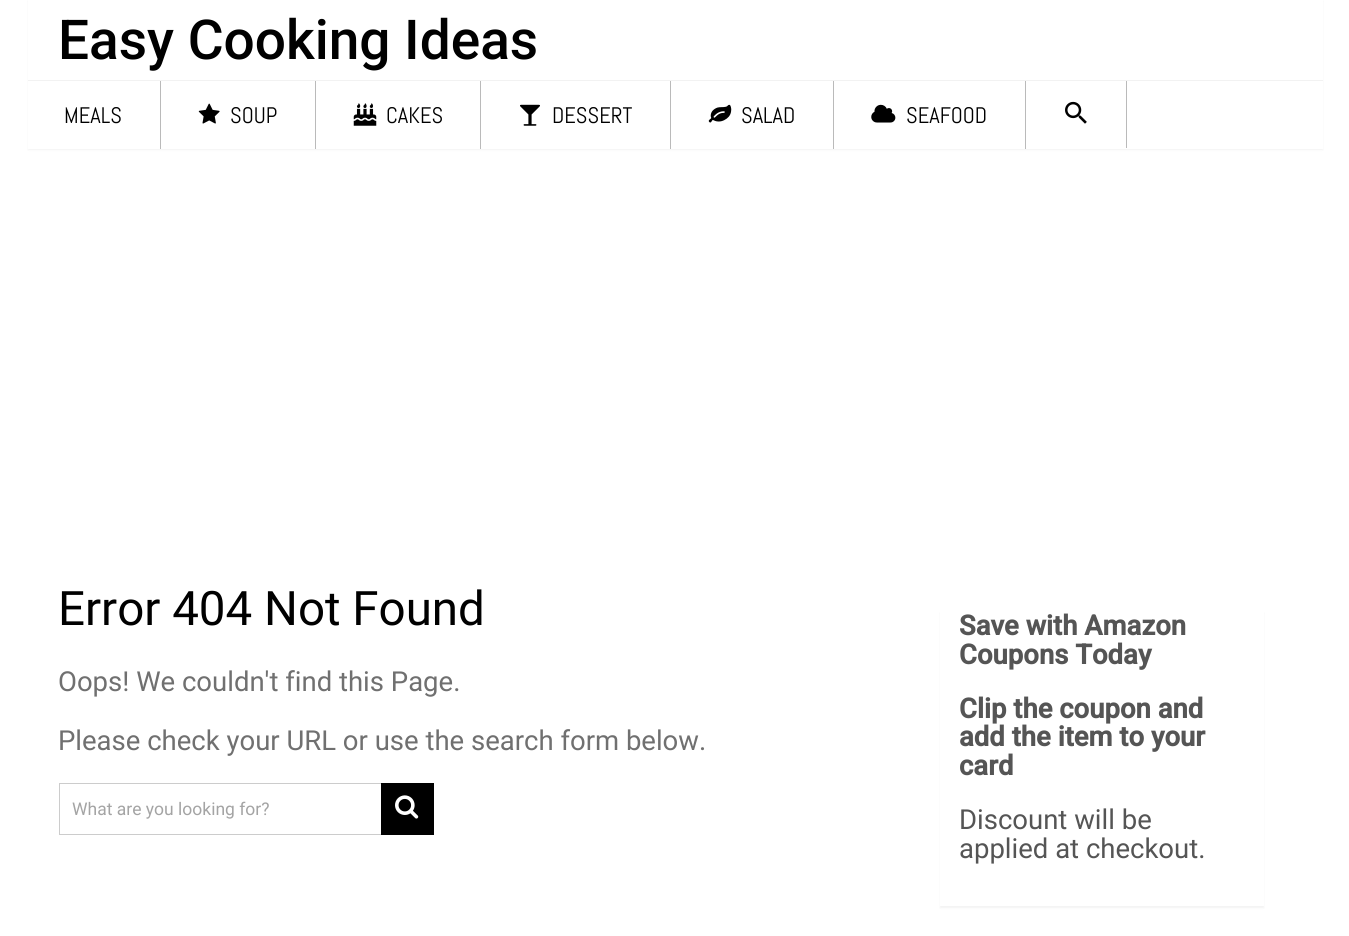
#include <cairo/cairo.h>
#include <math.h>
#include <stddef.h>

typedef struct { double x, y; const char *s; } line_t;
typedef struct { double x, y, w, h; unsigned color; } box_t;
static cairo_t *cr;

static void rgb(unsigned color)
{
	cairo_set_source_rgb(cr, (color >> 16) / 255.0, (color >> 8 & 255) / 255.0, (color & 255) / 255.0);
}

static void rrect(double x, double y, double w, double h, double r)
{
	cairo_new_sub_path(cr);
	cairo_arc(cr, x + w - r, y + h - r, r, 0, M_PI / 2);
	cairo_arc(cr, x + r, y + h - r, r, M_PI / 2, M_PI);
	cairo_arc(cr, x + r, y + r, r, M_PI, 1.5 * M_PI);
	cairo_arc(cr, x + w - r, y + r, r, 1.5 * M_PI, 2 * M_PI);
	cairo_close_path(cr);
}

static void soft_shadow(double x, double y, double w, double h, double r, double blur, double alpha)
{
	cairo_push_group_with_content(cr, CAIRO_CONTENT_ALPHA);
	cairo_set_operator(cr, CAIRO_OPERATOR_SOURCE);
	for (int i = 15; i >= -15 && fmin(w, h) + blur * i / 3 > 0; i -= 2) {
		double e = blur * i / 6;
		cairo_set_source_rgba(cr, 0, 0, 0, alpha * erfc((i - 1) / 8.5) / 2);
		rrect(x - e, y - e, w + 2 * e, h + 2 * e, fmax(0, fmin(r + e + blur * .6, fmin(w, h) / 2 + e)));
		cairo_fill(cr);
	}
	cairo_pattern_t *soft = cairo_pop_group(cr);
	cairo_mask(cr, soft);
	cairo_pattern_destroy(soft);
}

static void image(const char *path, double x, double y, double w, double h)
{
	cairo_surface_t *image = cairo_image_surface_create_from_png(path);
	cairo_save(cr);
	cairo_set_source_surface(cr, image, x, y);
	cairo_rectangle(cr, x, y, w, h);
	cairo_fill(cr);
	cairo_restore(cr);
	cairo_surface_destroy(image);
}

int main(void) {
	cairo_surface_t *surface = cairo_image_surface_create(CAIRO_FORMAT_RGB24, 1349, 936);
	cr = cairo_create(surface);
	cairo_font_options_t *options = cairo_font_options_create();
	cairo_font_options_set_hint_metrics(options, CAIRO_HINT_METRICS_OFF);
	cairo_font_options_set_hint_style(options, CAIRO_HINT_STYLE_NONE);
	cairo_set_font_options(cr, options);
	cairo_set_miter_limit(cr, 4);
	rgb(0xffffff);
	cairo_paint(cr);
	rgb(0x000000);
	soft_shadow(28, 1, 1295, 149, 0, 1, 0.05);
	{
		static const box_t items[] = {
			{28, 0, 1295, 149, 0xffffff},
			{28, 80, 1295, 1, 0xf2f2f2},
			{160, 81, 1, 68, 0xbababa},
			{315, 81, 1, 68, 0xbababa},
		};
		for (size_t i = 0; i < sizeof items / sizeof *items; i++) {
			rgb(items[i].color);
			cairo_rectangle(cr, items[i].x, items[i].y, items[i].w, items[i].h);
			cairo_fill(cr);
		}
	}
	image("img/1.png", 198, 103, 22, 21);
	cairo_rectangle(cr, 480, 81, 1, 68);
	cairo_fill(cr);
	image("img/2.png", 353, 103, 24, 23);
	cairo_rectangle(cr, 670, 81, 1, 68);
	cairo_fill(cr);
	image("img/3.png", 520, 104, 20, 22);
	cairo_rectangle(cr, 833, 81, 1, 68);
	cairo_fill(cr);
	image("img/4.png", 708, 104, 24, 19);
	cairo_rectangle(cr, 1025, 81, 1, 68);
	cairo_fill(cr);
	image("img/5.png", 871, 104, 25, 19);
	cairo_rectangle(cr, 1126, 81, 1, 67);
	cairo_fill(cr);
	image("img/6.png", 1065, 101, 22, 23);
	cairo_rectangle(cr, 59.5, 783.5, 374, 51);
	rgb(0xcccccc);
	cairo_set_line_width(cr, 1);
	cairo_stroke(cr);
	rgb(0x000000);
	cairo_rectangle(cr, 381, 783, 53, 52);
	cairo_fill(cr);
	image("img/7.png", 395, 795, 24, 24);
	rgb(0x000000);
	soft_shadow(940, 613, 324, 295, 0, 1, 0.05);
	rgb(0xffffff);
	cairo_rectangle(cr, 940, 612, 324, 294);
	cairo_fill(cr);
	cairo_select_font_face(cr, "Roboto Medium", CAIRO_FONT_SLANT_NORMAL, CAIRO_FONT_WEIGHT_NORMAL);
	cairo_set_font_size(cr, 55);
	rgb(0x000000);
	cairo_move_to(cr, 58, 59);
	cairo_show_text(cr, "Easy Cooking Ideas");
	cairo_select_font_face(cr, "Abel", CAIRO_FONT_SLANT_NORMAL, CAIRO_FONT_WEIGHT_NORMAL);
	cairo_set_font_size(cr, 22.5);
	{
		static const line_t items[] = {
			{64, 123, "MEALS"},
			{230, 123, "SOUP"},
			{386, 123, "CAKES"},
			{552, 123, "DESSERT"},
			{741, 123, "SALAD"},
			{906, 123, "SEAFOOD"},
		};
		for (size_t i = 0; i < sizeof items / sizeof *items; i++) {
			cairo_move_to(cr, items[i].x, items[i].y);
			cairo_show_text(cr, items[i].s);
		}
	}
	cairo_select_font_face(cr, "Roboto", CAIRO_FONT_SLANT_NORMAL, CAIRO_FONT_WEIGHT_NORMAL);
	cairo_set_font_size(cr, 47.5);
	cairo_move_to(cr, 58, 625);
	cairo_show_text(cr, "Error 404 Not Found");
	cairo_set_font_size(cr, 27.5);
	rgb(0x707070);
	cairo_move_to(cr, 58, 691);
	cairo_show_text(cr, "Oops! We couldn't find this Page.");
	cairo_move_to(cr, 58, 750);
	cairo_show_text(cr, "Please check your URL or use the search form below.");
	cairo_set_font_size(cr, 17.5);
	rgb(0xa4a4a4);
	cairo_move_to(cr, 72, 815);
	cairo_show_text(cr, "What are you looking for?");
	cairo_select_font_face(cr, "Roboto", CAIRO_FONT_SLANT_NORMAL, CAIRO_FONT_WEIGHT_BOLD);
	cairo_set_font_size(cr, 27.5);
	rgb(0x555555);
	{
		static const line_t items[] = {
			{959, 635, "Save with Amazon"},
			{959, 664, "Coupons Today"},
			{959, 718, "Clip the coupon and"},
			{959, 746, "add the item to your"},
			{959, 775, "card"},
		};
		for (size_t i = 0; i < sizeof items / sizeof *items; i++) {
			cairo_move_to(cr, items[i].x, items[i].y);
			cairo_show_text(cr, items[i].s);
		}
	}
	cairo_select_font_face(cr, "Roboto", CAIRO_FONT_SLANT_NORMAL, CAIRO_FONT_WEIGHT_NORMAL);
	cairo_move_to(cr, 959, 829);
	cairo_show_text(cr, "Discount will be");
	cairo_move_to(cr, 959, 858);
	cairo_show_text(cr, "applied at checkout.");
	cairo_surface_write_to_png(surface, "page.png");
	cairo_font_options_destroy(options);
	cairo_destroy(cr);
	cairo_surface_destroy(surface);
	return 0;
}
